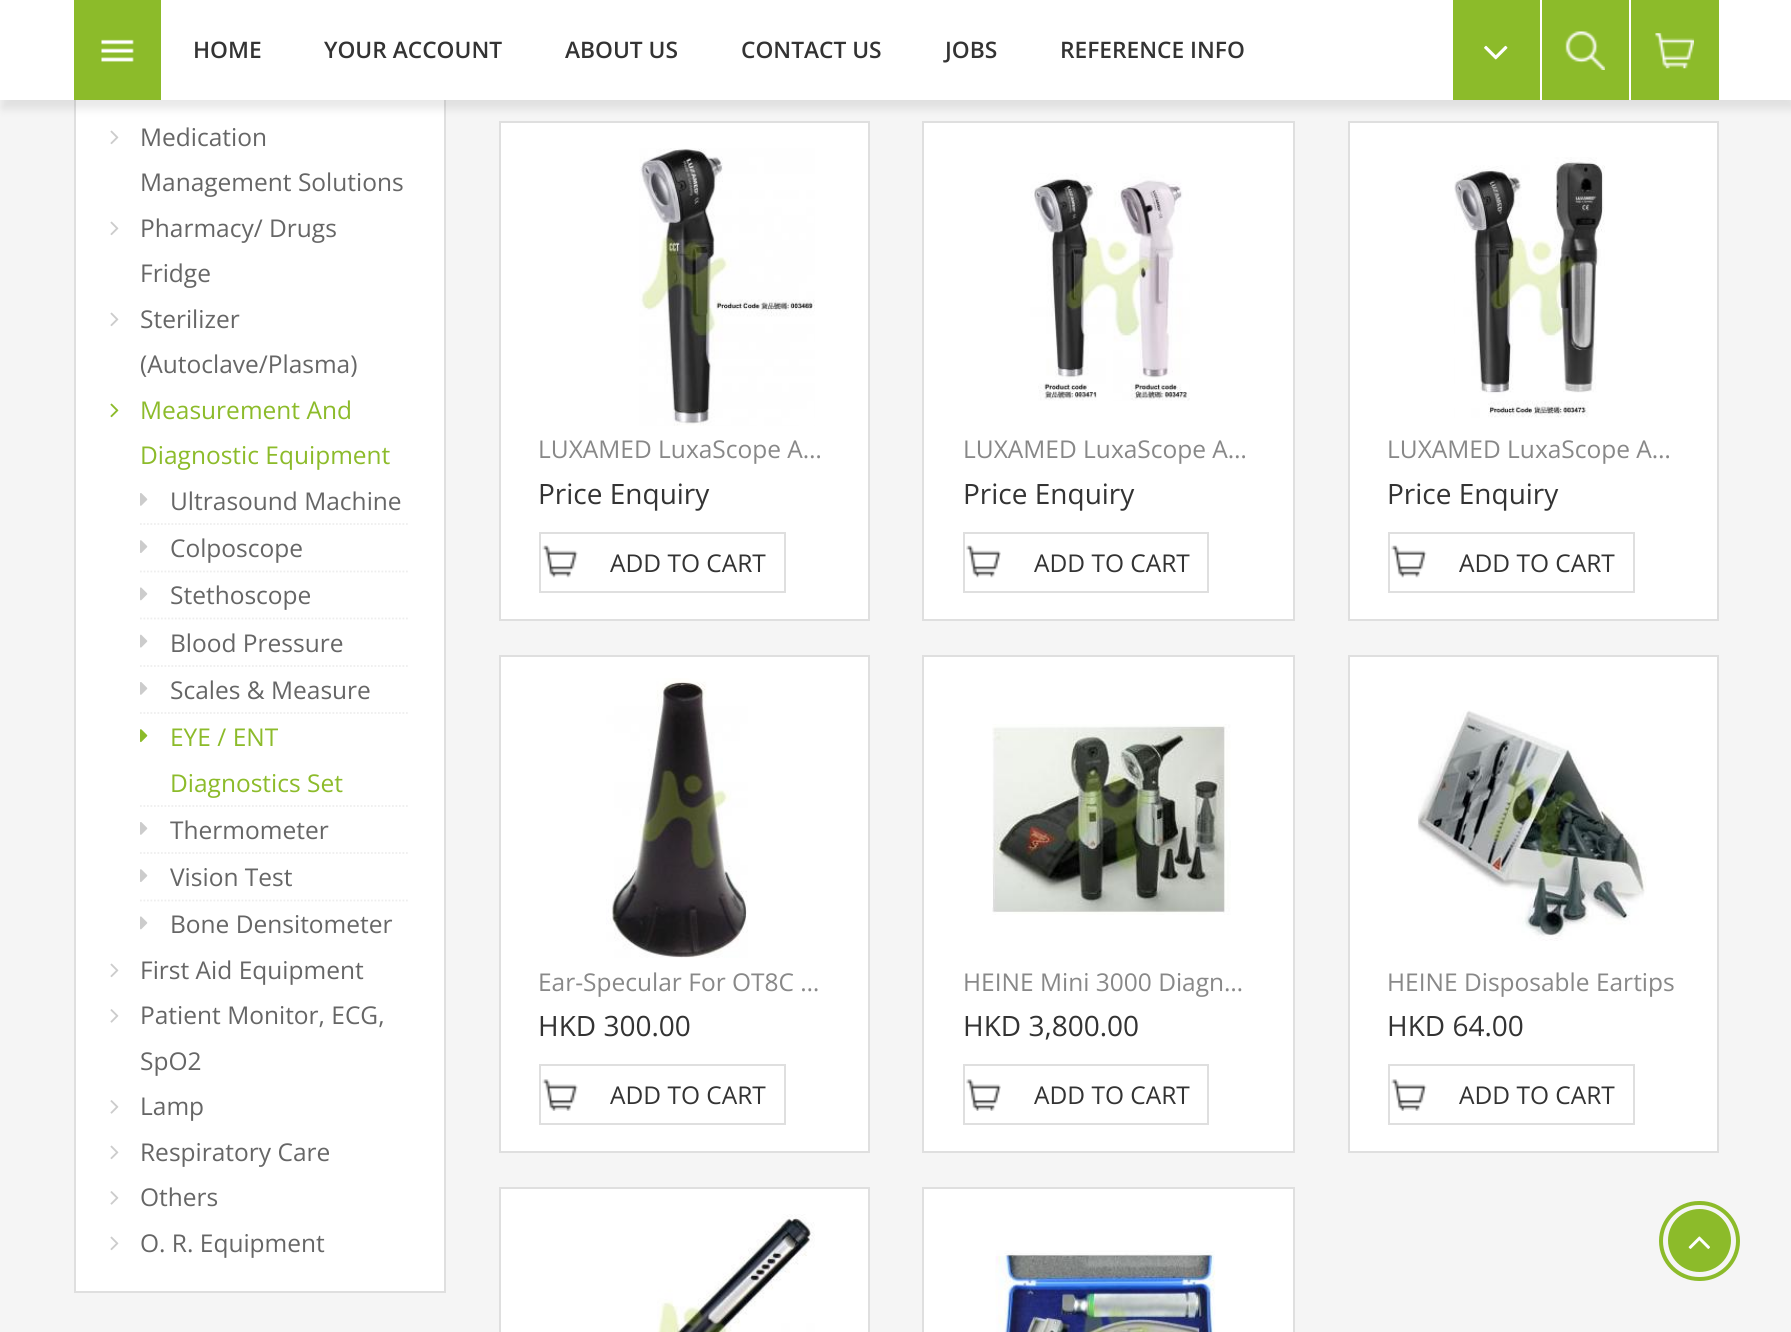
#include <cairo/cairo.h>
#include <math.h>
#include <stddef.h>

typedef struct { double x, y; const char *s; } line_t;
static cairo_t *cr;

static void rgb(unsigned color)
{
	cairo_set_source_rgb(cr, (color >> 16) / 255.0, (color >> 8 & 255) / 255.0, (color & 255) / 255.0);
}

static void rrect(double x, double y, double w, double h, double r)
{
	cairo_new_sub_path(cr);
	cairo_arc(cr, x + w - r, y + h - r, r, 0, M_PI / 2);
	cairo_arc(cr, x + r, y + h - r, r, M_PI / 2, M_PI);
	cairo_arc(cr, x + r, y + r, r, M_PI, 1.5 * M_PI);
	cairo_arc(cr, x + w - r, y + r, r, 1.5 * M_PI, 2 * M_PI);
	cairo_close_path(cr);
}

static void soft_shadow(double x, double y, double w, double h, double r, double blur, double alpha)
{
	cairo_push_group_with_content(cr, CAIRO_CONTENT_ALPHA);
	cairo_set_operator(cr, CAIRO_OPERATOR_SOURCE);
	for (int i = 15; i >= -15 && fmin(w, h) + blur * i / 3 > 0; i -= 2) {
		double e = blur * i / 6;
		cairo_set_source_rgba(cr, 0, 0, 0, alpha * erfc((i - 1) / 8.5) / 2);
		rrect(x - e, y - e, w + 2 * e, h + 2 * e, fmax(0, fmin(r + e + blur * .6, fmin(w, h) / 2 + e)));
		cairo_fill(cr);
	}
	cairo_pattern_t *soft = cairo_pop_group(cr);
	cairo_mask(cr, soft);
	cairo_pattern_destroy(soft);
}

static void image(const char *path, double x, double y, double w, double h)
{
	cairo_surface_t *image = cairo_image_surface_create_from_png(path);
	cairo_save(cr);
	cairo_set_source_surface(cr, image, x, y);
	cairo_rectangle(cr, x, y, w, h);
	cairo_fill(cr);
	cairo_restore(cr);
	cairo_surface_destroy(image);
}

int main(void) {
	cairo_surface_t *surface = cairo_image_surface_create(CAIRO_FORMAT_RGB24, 1791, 1332);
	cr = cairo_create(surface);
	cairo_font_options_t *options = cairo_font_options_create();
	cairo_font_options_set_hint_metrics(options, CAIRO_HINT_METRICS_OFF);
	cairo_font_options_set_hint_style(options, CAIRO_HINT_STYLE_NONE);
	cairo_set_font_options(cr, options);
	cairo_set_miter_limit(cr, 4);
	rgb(0xf5f5f5);
	cairo_paint(cr);
	rgb(0xffffff);
	cairo_rectangle(cr, 76, 100, 368, 1191);
	cairo_fill(cr);
	cairo_rectangle(cr, 75, 13, 370, 1279);
	rgb(0xdfdfdf);
	cairo_stroke(cr);
	rgb(0xffffff);
	cairo_rectangle(cr, 500, 122, 369, 498);
	cairo_fill_preserve(cr);
	rgb(0xdfdfdf);
	cairo_stroke(cr);
	rgb(0xffffff);
	cairo_rectangle(cr, 923, 122, 371, 498);
	cairo_fill_preserve(cr);
	rgb(0xdfdfdf);
	cairo_stroke(cr);
	rgb(0xffffff);
	cairo_rectangle(cr, 1349, 122, 369, 498);
	cairo_fill_preserve(cr);
	rgb(0xdfdfdf);
	cairo_stroke(cr);
	rgb(0x000000);
	soft_shadow(2, 9, 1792, 100, 0, 4.5, 0.09);
	rgb(0xffffff);
	cairo_rectangle(cr, 0, 0, 1791, 100);
	cairo_fill(cr);
	rgb(0x8cbb2a);
	cairo_rectangle(cr, 74, 0, 87, 100);
	cairo_fill(cr);
	image("img/1.png", 101, 39, 33, 23);
	cairo_rectangle(cr, 1453, 0, 87, 100);
	cairo_fill(cr);
	image("img/2.png", 1484, 45, 24, 15);
	cairo_rectangle(cr, 1542, 0, 87, 100);
	cairo_fill(cr);
	image("img/3.png", 1565, 31, 40, 39);
	cairo_rectangle(cr, 1631, 0, 88, 100);
	cairo_fill(cr);
	image("img/4.png", 1655, 33, 39, 36);
	image("img/5.png", 110, 130, 9, 15);
	image("img/5.png", 110, 221, 9, 15);
	image("img/5.png", 110, 312, 9, 15);
	image("img/6.png", 110, 403, 9, 15);
	cairo_new_path(cr);
	cairo_move_to(cr, 140, 524);
	cairo_line_to(cr, 409.5, 524);
	rgb(0xeeeeee);
	cairo_set_line_width(cr, 1.8);
	cairo_set_dash(cr, (double[]){1.75, 1.75}, 2, 0);
	cairo_stroke(cr);
	image("img/7.png", 140, 493, 8, 13);
	cairo_new_path(cr);
	cairo_move_to(cr, 140, 571.5);
	cairo_line_to(cr, 409.5, 571.5);
	cairo_stroke(cr);
	image("img/8.png", 140, 540, 8, 13);
	cairo_new_path(cr);
	cairo_move_to(cr, 140, 618.5);
	cairo_line_to(cr, 409.5, 618.5);
	cairo_stroke(cr);
	image("img/9.png", 140, 587, 8, 14);
	cairo_new_path(cr);
	cairo_move_to(cr, 140, 666);
	cairo_line_to(cr, 409.5, 666);
	cairo_stroke(cr);
	image("img/10.png", 140, 634, 8, 14);
	cairo_new_path(cr);
	cairo_move_to(cr, 140, 713);
	cairo_line_to(cr, 409.5, 713);
	cairo_stroke(cr);
	image("img/7.png", 140, 682, 8, 13);
	cairo_new_path(cr);
	cairo_move_to(cr, 140, 806);
	cairo_line_to(cr, 409.5, 806);
	cairo_stroke(cr);
	image("img/11.png", 140, 729, 8, 14);
	cairo_new_path(cr);
	cairo_move_to(cr, 140, 853);
	cairo_line_to(cr, 409.5, 853);
	cairo_stroke(cr);
	image("img/7.png", 140, 822, 8, 13);
	cairo_new_path(cr);
	cairo_move_to(cr, 140, 900.5);
	cairo_line_to(cr, 409.5, 900.5);
	cairo_stroke(cr);
	image("img/8.png", 140, 869, 8, 13);
	image("img/9.png", 140, 916, 8, 14);
	image("img/5.png", 110, 963, 9, 15);
	image("img/12.png", 110, 1009, 9, 14);
	image("img/12.png", 110, 1100, 9, 14);
	image("img/5.png", 110, 1145, 9, 15);
	image("img/12.png", 110, 1191, 9, 14);
	image("img/5.png", 110, 1236, 9, 15);
	image("img/13.png", 639, 148, 176, 278);
	image("img/14.png", 542, 545, 36, 33);
	cairo_rectangle(cr, 540, 533, 245, 59);
	rgb(0xdfdfdf);
	cairo_set_line_width(cr, 2);
	cairo_set_dash(cr, NULL, 0, 0);
	cairo_stroke(cr);
	image("img/15.png", 1030, 173, 160, 228);
	image("img/16.png", 966, 545, 35, 33);
	cairo_rectangle(cr, 964, 533, 244, 59);
	cairo_stroke(cr);
	image("img/17.png", 1454, 157, 151, 261);
	image("img/18.png", 1391, 545, 36, 33);
	cairo_rectangle(cr, 1389, 533, 245, 59);
	cairo_stroke(cr);
	rgb(0xffffff);
	cairo_rectangle(cr, 500, 656, 369, 496);
	cairo_fill_preserve(cr);
	rgb(0xdfdfdf);
	cairo_stroke(cr);
	image("img/19.png", 606, 678, 142, 280);
	image("img/20.png", 542, 1079, 36, 32);
	cairo_rectangle(cr, 540, 1065, 245, 59);
	cairo_stroke(cr);
	rgb(0xffffff);
	cairo_rectangle(cr, 923, 656, 371, 496);
	cairo_fill_preserve(cr);
	rgb(0xdfdfdf);
	cairo_stroke(cr);
	image("img/21.png", 992, 724, 239, 191);
	image("img/22.png", 966, 1079, 35, 32);
	cairo_rectangle(cr, 964, 1065, 244, 59);
	cairo_stroke(cr);
	rgb(0xffffff);
	cairo_rectangle(cr, 1349, 656, 369, 496);
	cairo_fill_preserve(cr);
	rgb(0xdfdfdf);
	cairo_stroke(cr);
	image("img/23.png", 1417, 710, 230, 231);
	image("img/24.png", 1391, 1079, 36, 32);
	cairo_rectangle(cr, 1389, 1065, 245, 59);
	cairo_stroke(cr);
	rgb(0xffffff);
	cairo_rectangle(cr, 500, 1188, 369, 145);
	cairo_fill_preserve(cr);
	rgb(0xdfdfdf);
	cairo_stroke(cr);
	image("img/25.png", 657, 1214, 158, 118);
	rgb(0xffffff);
	cairo_rectangle(cr, 923, 1188, 371, 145);
	cairo_fill_preserve(cr);
	rgb(0xdfdfdf);
	cairo_stroke(cr);
	image("img/26.png", 995, 1250, 221, 82);
	rrect(1661, 1203, 77, 76, 38);
	rgb(0x8cbb2a);
	cairo_set_line_width(cr, 4);
	cairo_stroke(cr);
	cairo_arc(cr, 1699.5, 1240.5, 31.5, 0, 2 * M_PI);
	cairo_fill(cr);
	image("img/27.png", 1688, 1236, 22, 13);
	cairo_select_font_face(cr, "Open Sans SemiBold", CAIRO_FONT_SLANT_NORMAL, CAIRO_FONT_WEIGHT_NORMAL);
	cairo_set_font_size(cr, 22.75);
	rgb(0x333333);
	{
		static const line_t items[] = {
			{193, 58, "HOME"},
			{324, 58, "YOUR ACCOUNT"},
			{565, 58, "ABOUT US"},
			{741, 58, "CONTACT US"},
			{945, 58, "JOBS"},
			{1060, 58, "REFERENCE INFO"},
		};
		for (size_t i = 0; i < sizeof items / sizeof *items; i++) {
			cairo_move_to(cr, items[i].x, items[i].y);
			cairo_show_text(cr, items[i].s);
		}
	}
	cairo_select_font_face(cr, "Open Sans", CAIRO_FONT_SLANT_NORMAL, CAIRO_FONT_WEIGHT_NORMAL);
	cairo_set_font_size(cr, 24.5);
	rgb(0x666666);
	{
		static const line_t items[] = {
			{140, 146, "Medication"},
			{140, 191, "Management Solutions"},
			{140, 237, "Pharmacy/ Drugs"},
			{140, 282, "Fridge"},
			{140, 328, "Sterilizer"},
			{140, 373, "(Autoclave/Plasma)"},
		};
		for (size_t i = 0; i < sizeof items / sizeof *items; i++) {
			cairo_move_to(cr, items[i].x, items[i].y);
			cairo_show_text(cr, items[i].s);
		}
	}
	rgb(0x8cbb2a);
	cairo_move_to(cr, 140, 419);
	cairo_show_text(cr, "Measurement And");
	cairo_move_to(cr, 140, 464);
	cairo_show_text(cr, "Diagnostic Equipment");
	rgb(0x666666);
	{
		static const line_t items[] = {
			{170, 510, "Ultrasound Machine"},
			{170, 557, "Colposcope"},
			{170, 604, "Stethoscope"},
			{170, 652, "Blood Pressure"},
			{170, 699, "Scales & Measure"},
		};
		for (size_t i = 0; i < sizeof items / sizeof *items; i++) {
			cairo_move_to(cr, items[i].x, items[i].y);
			cairo_show_text(cr, items[i].s);
		}
	}
	rgb(0x8cbb2a);
	cairo_move_to(cr, 170, 746);
	cairo_show_text(cr, "EYE / ENT");
	cairo_move_to(cr, 170, 792);
	cairo_show_text(cr, "Diagnostics Set");
	rgb(0x666666);
	{
		static const line_t items[] = {
			{170, 839, "Thermometer"},
			{170, 886, "Vision Test"},
			{170, 933, "Bone Densitometer"},
			{140, 979, "First Aid Equipment"},
			{140, 1024, "Patient Monitor, ECG,"},
			{140, 1070, "SpO2"},
			{140, 1115, "Lamp"},
			{140, 1161, "Respiratory Care"},
			{140, 1206, "Others"},
			{140, 1252, "O. R. Equipment"},
		};
		for (size_t i = 0; i < sizeof items / sizeof *items; i++) {
			cairo_move_to(cr, items[i].x, items[i].y);
			cairo_show_text(cr, items[i].s);
		}
	}
	rgb(0x888888);
	cairo_move_to(cr, 538, 458);
	cairo_show_text(cr, "LUXAMED LuxaScope A…");
	cairo_set_font_size(cr, 28);
	rgb(0x333333);
	cairo_move_to(cr, 538, 504);
	cairo_show_text(cr, "Price Enquiry");
	cairo_set_font_size(cr, 24.5);
	cairo_move_to(cr, 610, 572);
	cairo_show_text(cr, "ADD TO CART");
	rgb(0x888888);
	cairo_move_to(cr, 963, 458);
	cairo_show_text(cr, "LUXAMED LuxaScope A…");
	cairo_set_font_size(cr, 28);
	rgb(0x333333);
	cairo_move_to(cr, 963, 504);
	cairo_show_text(cr, "Price Enquiry");
	cairo_set_font_size(cr, 24.5);
	cairo_move_to(cr, 1034, 572);
	cairo_show_text(cr, "ADD TO CART");
	rgb(0x888888);
	cairo_move_to(cr, 1387, 458);
	cairo_show_text(cr, "LUXAMED LuxaScope A…");
	cairo_set_font_size(cr, 28);
	rgb(0x333333);
	cairo_move_to(cr, 1387, 504);
	cairo_show_text(cr, "Price Enquiry");
	cairo_set_font_size(cr, 24.5);
	cairo_move_to(cr, 1459, 572);
	cairo_show_text(cr, "ADD TO CART");
	rgb(0x888888);
	cairo_move_to(cr, 538, 991);
	cairo_show_text(cr, "Ear-Specular For OT8C …");
	cairo_set_font_size(cr, 28);
	rgb(0x333333);
	cairo_move_to(cr, 538, 1036);
	cairo_show_text(cr, "HKD 300.00");
	cairo_set_font_size(cr, 24.5);
	cairo_move_to(cr, 610, 1104);
	cairo_show_text(cr, "ADD TO CART");
	rgb(0x888888);
	cairo_move_to(cr, 963, 991);
	cairo_show_text(cr, "HEINE Mini 3000 Diagn…");
	cairo_set_font_size(cr, 28);
	rgb(0x333333);
	cairo_move_to(cr, 963, 1036);
	cairo_show_text(cr, "HKD 3,800.00");
	cairo_set_font_size(cr, 24.5);
	cairo_move_to(cr, 1034, 1104);
	cairo_show_text(cr, "ADD TO CART");
	rgb(0x888888);
	cairo_move_to(cr, 1387, 991);
	cairo_show_text(cr, "HEINE Disposable Eartips");
	cairo_set_font_size(cr, 28);
	rgb(0x333333);
	cairo_move_to(cr, 1387, 1036);
	cairo_show_text(cr, "HKD 64.00");
	cairo_set_font_size(cr, 24.5);
	cairo_move_to(cr, 1459, 1104);
	cairo_show_text(cr, "ADD TO CART");
	cairo_surface_write_to_png(surface, "page.png");
	cairo_font_options_destroy(options);
	cairo_destroy(cr);
	cairo_surface_destroy(surface);
	return 0;
}
